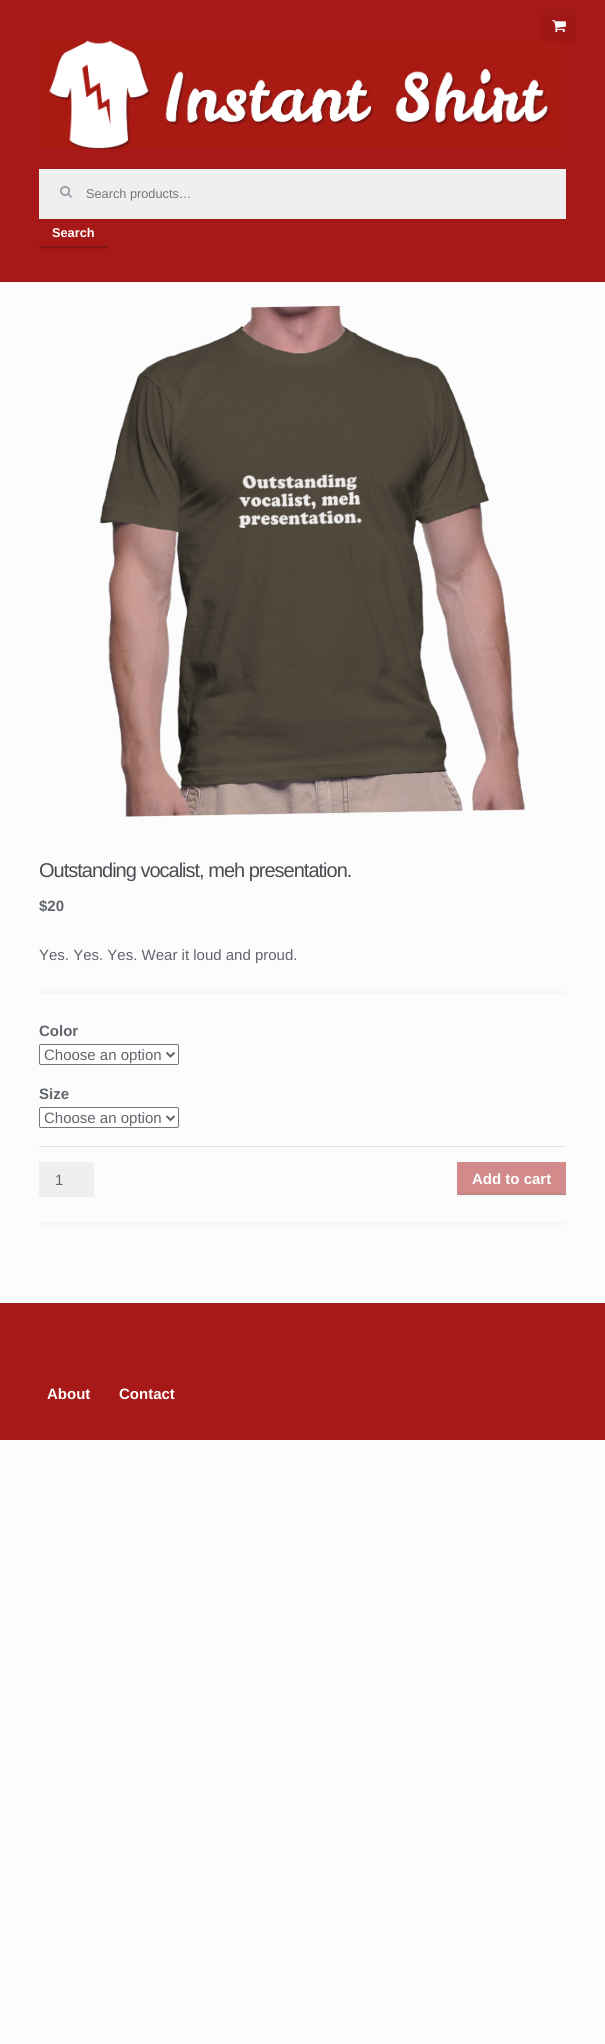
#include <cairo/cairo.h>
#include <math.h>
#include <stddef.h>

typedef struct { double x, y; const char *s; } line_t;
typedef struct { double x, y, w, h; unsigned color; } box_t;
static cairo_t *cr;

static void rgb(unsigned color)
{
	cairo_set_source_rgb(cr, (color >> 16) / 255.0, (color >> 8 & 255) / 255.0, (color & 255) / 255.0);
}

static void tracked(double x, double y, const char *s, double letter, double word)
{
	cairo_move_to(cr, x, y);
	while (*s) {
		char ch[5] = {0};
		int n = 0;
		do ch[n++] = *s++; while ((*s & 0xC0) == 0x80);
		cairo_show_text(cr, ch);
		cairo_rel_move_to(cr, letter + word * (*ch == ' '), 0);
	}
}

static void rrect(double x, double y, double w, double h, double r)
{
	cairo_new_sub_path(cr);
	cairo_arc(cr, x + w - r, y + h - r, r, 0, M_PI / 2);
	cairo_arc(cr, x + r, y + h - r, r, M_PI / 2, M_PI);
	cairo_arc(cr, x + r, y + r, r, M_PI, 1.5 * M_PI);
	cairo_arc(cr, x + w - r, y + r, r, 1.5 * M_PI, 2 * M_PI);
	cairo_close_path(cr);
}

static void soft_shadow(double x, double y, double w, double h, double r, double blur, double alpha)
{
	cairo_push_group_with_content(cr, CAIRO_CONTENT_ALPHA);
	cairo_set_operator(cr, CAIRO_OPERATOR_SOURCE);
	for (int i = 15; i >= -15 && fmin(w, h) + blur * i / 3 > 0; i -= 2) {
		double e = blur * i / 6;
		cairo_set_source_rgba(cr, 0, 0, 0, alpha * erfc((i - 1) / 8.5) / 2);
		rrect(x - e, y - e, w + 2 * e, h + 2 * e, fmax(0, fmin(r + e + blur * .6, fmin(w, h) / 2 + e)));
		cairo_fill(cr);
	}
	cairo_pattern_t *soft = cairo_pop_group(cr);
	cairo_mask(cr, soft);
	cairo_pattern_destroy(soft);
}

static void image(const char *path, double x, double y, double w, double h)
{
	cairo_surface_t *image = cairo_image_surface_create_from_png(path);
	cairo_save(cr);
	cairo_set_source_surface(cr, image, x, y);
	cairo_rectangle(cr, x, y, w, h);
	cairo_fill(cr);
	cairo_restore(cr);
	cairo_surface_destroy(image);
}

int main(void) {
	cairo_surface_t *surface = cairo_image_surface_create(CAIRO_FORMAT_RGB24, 605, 2044);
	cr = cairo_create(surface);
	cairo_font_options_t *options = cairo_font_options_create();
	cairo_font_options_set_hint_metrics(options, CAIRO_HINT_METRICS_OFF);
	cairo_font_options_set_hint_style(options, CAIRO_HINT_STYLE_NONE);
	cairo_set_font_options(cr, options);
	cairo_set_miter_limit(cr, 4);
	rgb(0xfcfcfc);
	cairo_paint(cr);
	rgb(0xa71818);
	cairo_rectangle(cr, 0, 0, 605, 282);
	cairo_fill(cr);
	image("img/2.png", 39, 39, 527, 110);
	cairo_set_source_rgba(cr, 0, 0, 0, 0.05);
	cairo_rectangle(cr, 542, 9, 34, 34);
	cairo_fill(cr);
	image("img/1.png", 552, 20, 14, 13);
	rgb(0xefefef);
	cairo_rectangle(cr, 39, 169, 527, 50);
	cairo_fill(cr);
	image("img/3.png", 60, 185, 12, 13);
	cairo_save(cr);
	cairo_rectangle(cr, 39, 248, 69, 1);
	cairo_clip(cr);
	rgb(0x000000);
	soft_shadow(39, 220, 69, 29, 0, 0.5, 0.1);
	cairo_restore(cr);
	rgb(0x861313);
	cairo_rectangle(cr, 39, 246, 69, 2);
	cairo_fill(cr);
	image("img/4.png", 99, 305, 426, 512);
	rgb(0xf6f6f6);
	cairo_rectangle(cr, 39, 991, 527, 3);
	cairo_fill(cr);
	cairo_rectangle(cr, 39, 1222, 527, 3);
	cairo_fill(cr);
	rgb(0xffffff);
	rrect(39.5, 1044.5, 139, 20, 1.5);
	cairo_fill_preserve(cr);
	rgb(0x767676);
	cairo_set_line_width(cr, 1);
	cairo_stroke(cr);
	cairo_new_path(cr);
	cairo_move_to(cr, 166.5, 1052.5);
	cairo_line_to(cr, 170.5, 1056.5);
	cairo_line_to(cr, 174.5, 1052.5);
	rgb(0x60646c);
	cairo_set_line_width(cr, 2);
	cairo_stroke(cr);
	rgb(0xffffff);
	rrect(39.5, 1107.5, 139, 20, 1.5);
	cairo_fill_preserve(cr);
	rgb(0x767676);
	cairo_set_line_width(cr, 1);
	cairo_stroke(cr);
	cairo_new_path(cr);
	cairo_move_to(cr, 166.5, 1116);
	cairo_line_to(cr, 170.5, 1120);
	cairo_line_to(cr, 174.5, 1116);
	rgb(0x60646c);
	cairo_set_line_width(cr, 2);
	cairo_stroke(cr);
	rgb(0xe3e3e3);
	cairo_rectangle(cr, 39, 1146, 527, 1);
	cairo_fill(cr);
	rgb(0xefefef);
	cairo_rectangle(cr, 39, 1162, 55, 35);
	cairo_fill(cr);
	rgb(0x7e7e7e);
	soft_shadow(457, 1163, 109, 33, 0, 0.5, 0.1);
	{
		static const box_t items[] = {
			{457, 1162, 109, 31, 0xd28a8a},
			{457, 1193, 109, 2, 0xc18888},
			{0, 1303, 605, 137, 0xa71818},
		};
		for (size_t i = 0; i < sizeof items / sizeof *items; i++) {
			rgb(items[i].color);
			cairo_rectangle(cr, items[i].x, items[i].y, items[i].w, items[i].h);
			cairo_fill(cr);
		}
	}
	cairo_select_font_face(cr, "Liberation Sans", CAIRO_FONT_SLANT_NORMAL, CAIRO_FONT_WEIGHT_NORMAL);
	cairo_set_font_size(cr, 12.75);
	rgb(0x757575);
	cairo_move_to(cr, 86, 198);
	cairo_show_text(cr, "Search products…");
	cairo_select_font_face(cr, "Liberation Sans", CAIRO_FONT_SLANT_NORMAL, CAIRO_FONT_WEIGHT_BOLD);
	rgb(0xffffff);
	cairo_move_to(cr, 52, 237);
	cairo_show_text(cr, "Search");
	cairo_select_font_face(cr, "Liberation Sans", CAIRO_FONT_SLANT_NORMAL, CAIRO_FONT_WEIGHT_NORMAL);
	cairo_set_font_size(cr, 20);
	rgb(0x484c51);
	tracked(39, 877, "Outstanding vocalist, meh presentation.", -1, 0);
	cairo_select_font_face(cr, "Liberation Sans", CAIRO_FONT_SLANT_NORMAL, CAIRO_FONT_WEIGHT_BOLD);
	cairo_set_font_size(cr, 15);
	rgb(0x60646c);
	cairo_move_to(cr, 39, 911);
	cairo_show_text(cr, "$20");
	cairo_select_font_face(cr, "Liberation Sans", CAIRO_FONT_SLANT_NORMAL, CAIRO_FONT_WEIGHT_NORMAL);
	cairo_move_to(cr, 39, 960);
	cairo_show_text(cr, "Yes. Yes. Yes. Wear it loud and proud.");
	cairo_select_font_face(cr, "Liberation Sans", CAIRO_FONT_SLANT_NORMAL, CAIRO_FONT_WEIGHT_BOLD);
	cairo_move_to(cr, 39, 1036);
	cairo_show_text(cr, "Color");
	cairo_select_font_face(cr, "Liberation Sans", CAIRO_FONT_SLANT_NORMAL, CAIRO_FONT_WEIGHT_NORMAL);
	cairo_move_to(cr, 44, 1060);
	cairo_show_text(cr, "Choose an option");
	cairo_select_font_face(cr, "Liberation Sans", CAIRO_FONT_SLANT_NORMAL, CAIRO_FONT_WEIGHT_BOLD);
	cairo_move_to(cr, 39, 1099);
	cairo_show_text(cr, "Size");
	cairo_select_font_face(cr, "Liberation Sans", CAIRO_FONT_SLANT_NORMAL, CAIRO_FONT_WEIGHT_NORMAL);
	cairo_move_to(cr, 44, 1123);
	cairo_show_text(cr, "Choose an option");
	cairo_move_to(cr, 55, 1185);
	cairo_show_text(cr, "1");
	cairo_select_font_face(cr, "Liberation Sans", CAIRO_FONT_SLANT_NORMAL, CAIRO_FONT_WEIGHT_BOLD);
	rgb(0xffffff);
	{
		static const line_t items[] = {
			{472, 1184, "Add to cart"},
			{47, 1399, "About"},
			{119, 1399, "Contact"},
		};
		for (size_t i = 0; i < sizeof items / sizeof *items; i++) {
			cairo_move_to(cr, items[i].x, items[i].y);
			cairo_show_text(cr, items[i].s);
		}
	}
	cairo_surface_write_to_png(surface, "page.png");
	cairo_font_options_destroy(options);
	cairo_destroy(cr);
	cairo_surface_destroy(surface);
	return 0;
}
